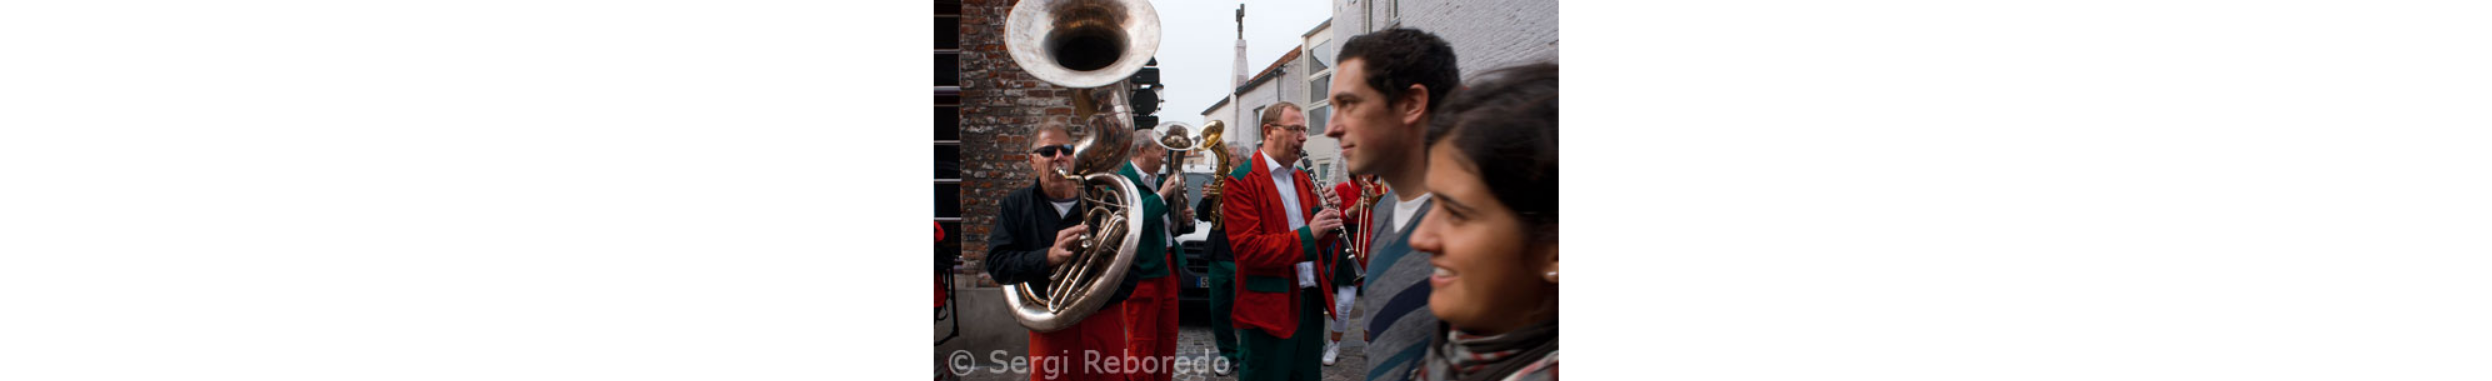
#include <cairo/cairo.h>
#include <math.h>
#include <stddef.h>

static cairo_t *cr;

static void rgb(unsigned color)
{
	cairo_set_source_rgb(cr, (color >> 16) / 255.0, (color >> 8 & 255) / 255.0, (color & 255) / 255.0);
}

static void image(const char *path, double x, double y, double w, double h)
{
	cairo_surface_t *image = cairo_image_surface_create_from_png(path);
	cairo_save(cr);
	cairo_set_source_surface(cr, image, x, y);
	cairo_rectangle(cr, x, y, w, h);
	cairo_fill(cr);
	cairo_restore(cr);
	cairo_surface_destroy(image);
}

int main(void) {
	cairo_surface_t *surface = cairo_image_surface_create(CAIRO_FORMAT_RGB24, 2492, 381);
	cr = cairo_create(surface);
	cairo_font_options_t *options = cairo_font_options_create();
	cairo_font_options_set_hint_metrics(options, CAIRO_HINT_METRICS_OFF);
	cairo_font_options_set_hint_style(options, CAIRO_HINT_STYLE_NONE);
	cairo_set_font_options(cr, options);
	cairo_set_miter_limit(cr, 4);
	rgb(0xffffff);
	cairo_paint(cr);
	image("img/1.png", 933, 0, 626, 381);
	cairo_surface_write_to_png(surface, "page.png");
	cairo_font_options_destroy(options);
	cairo_destroy(cr);
	cairo_surface_destroy(surface);
	return 0;
}
